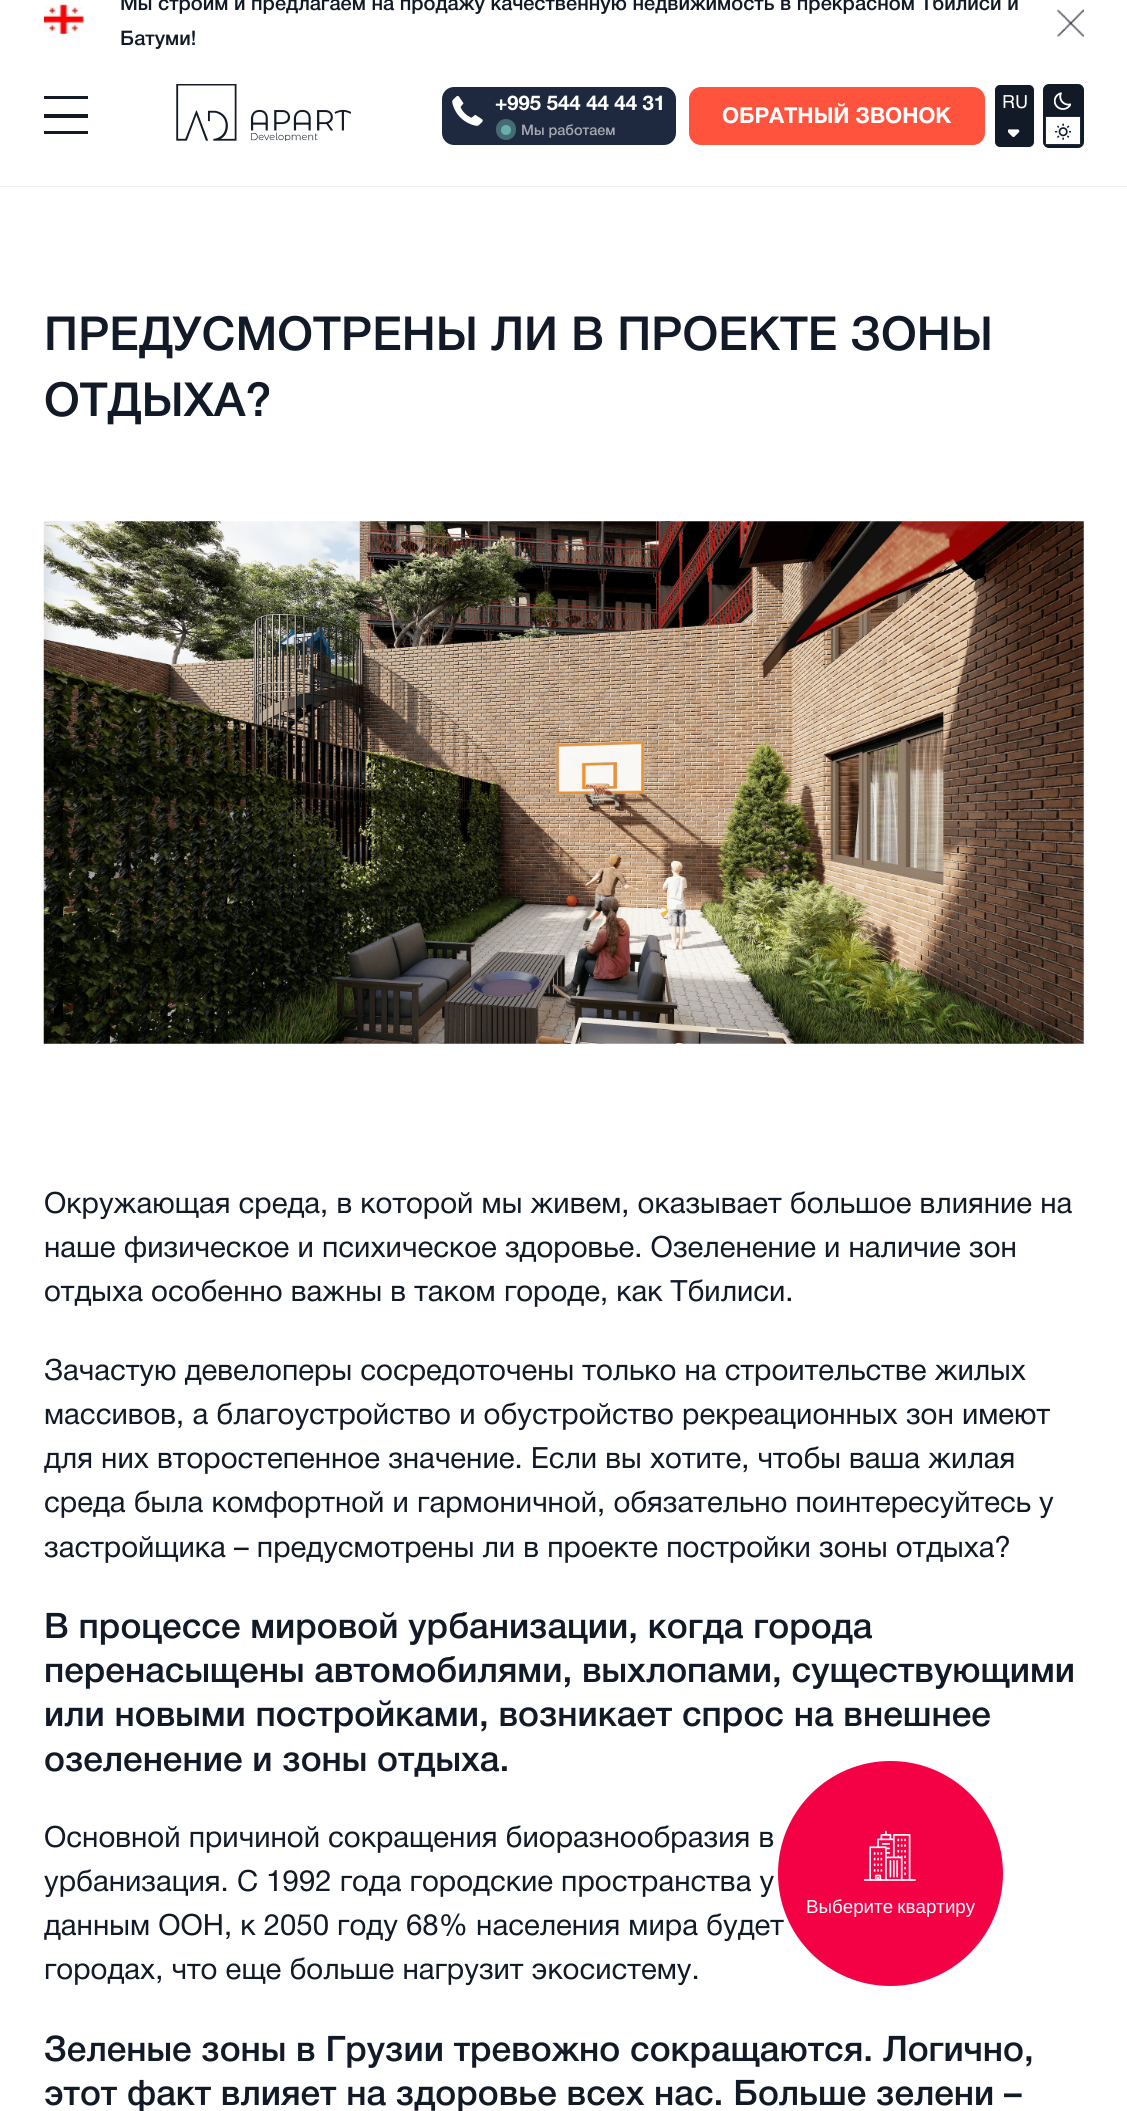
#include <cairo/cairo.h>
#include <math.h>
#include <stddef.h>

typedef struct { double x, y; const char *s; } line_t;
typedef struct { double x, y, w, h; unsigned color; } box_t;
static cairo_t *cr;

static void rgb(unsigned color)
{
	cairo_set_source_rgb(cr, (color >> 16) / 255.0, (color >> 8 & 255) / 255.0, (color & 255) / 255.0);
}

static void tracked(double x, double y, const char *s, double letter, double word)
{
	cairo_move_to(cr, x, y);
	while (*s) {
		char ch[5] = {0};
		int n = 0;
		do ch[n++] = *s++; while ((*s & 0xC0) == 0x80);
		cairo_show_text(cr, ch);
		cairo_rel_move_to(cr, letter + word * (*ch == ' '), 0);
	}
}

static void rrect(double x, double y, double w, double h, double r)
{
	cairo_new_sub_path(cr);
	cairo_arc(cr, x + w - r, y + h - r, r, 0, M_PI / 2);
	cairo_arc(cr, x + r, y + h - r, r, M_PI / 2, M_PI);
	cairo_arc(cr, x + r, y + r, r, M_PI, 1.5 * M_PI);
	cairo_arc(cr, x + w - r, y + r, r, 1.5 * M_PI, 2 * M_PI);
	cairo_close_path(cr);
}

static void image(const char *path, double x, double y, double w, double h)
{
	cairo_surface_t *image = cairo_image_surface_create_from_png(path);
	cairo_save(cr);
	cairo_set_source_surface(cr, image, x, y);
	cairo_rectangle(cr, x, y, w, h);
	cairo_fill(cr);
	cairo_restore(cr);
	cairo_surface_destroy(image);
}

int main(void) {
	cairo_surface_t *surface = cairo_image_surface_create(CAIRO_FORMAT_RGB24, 1127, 2111);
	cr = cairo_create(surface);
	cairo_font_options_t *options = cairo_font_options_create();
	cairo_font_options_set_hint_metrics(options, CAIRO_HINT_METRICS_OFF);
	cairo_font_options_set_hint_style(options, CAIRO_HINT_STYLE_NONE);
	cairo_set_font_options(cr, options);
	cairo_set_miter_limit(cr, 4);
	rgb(0xffffff);
	cairo_paint(cr);
	image("img/1.png", 44, 4, 40, 30);
	image("img/2.png", 1056, 9, 28, 28);
	{
		static const box_t items[] = {
			{0, 186, 1127, 1, 0xf1f1f2},
			{44, 96, 44, 3, 0x121927},
			{44, 114, 44, 4, 0x121927},
			{44, 131, 44, 3, 0x121927},
		};
		for (size_t i = 0; i < sizeof items / sizeof *items; i++) {
			rgb(items[i].color);
			cairo_rectangle(cr, items[i].x, items[i].y, items[i].w, items[i].h);
			cairo_fill(cr);
		}
	}
	image("img/3.png", 176, 84, 175, 57);
	rgb(0x1e293f);
	rrect(440.5, 85.5, 237, 61, 13.5);
	cairo_fill_preserve(cr);
	rgb(0xffffff);
	cairo_set_line_width(cr, 3);
	cairo_stroke(cr);
	image("img/4.png", 452, 96, 31, 30);
	rgb(0x446c74);
	rrect(496, 119, 20, 21, 10);
	cairo_fill(cr);
	rgb(0x69afa8);
	cairo_arc(cr, 506, 130, 5, 0, 2 * M_PI);
	cairo_fill(cr);
	rgb(0xff533e);
	rrect(687.5, 85.5, 299, 61, 13.5);
	cairo_fill_preserve(cr);
	rgb(0xffffff);
	cairo_stroke(cr);
	rgb(0x121927);
	rrect(994.5, 84.5, 40, 63, 5.5);
	cairo_fill_preserve(cr);
	rgb(0xffffff);
	cairo_set_line_width(cr, 1);
	cairo_stroke(cr);
	image("img/5.png", 1008, 129, 12, 8);
	rrect(1044.5, 85.5, 38, 61, 4.5);
	rgb(0x121927);
	cairo_set_line_width(cr, 3);
	cairo_stroke(cr);
	cairo_new_path(cr);
	cairo_move_to(cr, 1046, 86);
	cairo_line_to(cr, 1080, 86);
	cairo_curve_to(cr, 1080.5, 86, 1081, 86.5, 1081, 87);
	cairo_line_to(cr, 1081, 116);
	cairo_line_to(cr, 1045, 116);
	cairo_line_to(cr, 1045, 87);
	cairo_curve_to(cr, 1045, 86.5, 1045.5, 86, 1046, 86);
	cairo_close_path(cr);
	cairo_fill(cr);
	image("img/6.png", 1054, 92, 17, 18);
	rgb(0xffffff);
	cairo_new_path(cr);
	cairo_move_to(cr, 1045.5, 116.5);
	cairo_line_to(cr, 1080.5, 116.5);
	cairo_line_to(cr, 1080.5, 144);
	cairo_curve_to(cr, 1080.5, 144.5, 1080.5, 144.5, 1080, 144.5);
	cairo_line_to(cr, 1046, 144.5);
	cairo_curve_to(cr, 1045.5, 144.5, 1045.5, 144.5, 1045.5, 144);
	cairo_close_path(cr);
	cairo_fill_preserve(cr);
	rgb(0x1e293f);
	cairo_set_line_width(cr, 1);
	cairo_stroke(cr);
	image("img/7.png", 1055, 123, 16, 17);
	image("img/8.png", 43, 521, 1041, 523);
	cairo_select_font_face(cr, "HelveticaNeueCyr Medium", CAIRO_FONT_SLANT_NORMAL, CAIRO_FONT_WEIGHT_NORMAL);
	cairo_set_font_size(cr, 20.1);
	rgb(0x121927);
	cairo_move_to(cr, 120, 10);
	cairo_show_text(cr, "Мы строим и предлагаем на продажу качественную недвижимость в прекрасном Тбилиси и");
	cairo_move_to(cr, 120, 45);
	cairo_show_text(cr, "Батуми!");
	cairo_select_font_face(cr, "HelveticaNeueCyr", CAIRO_FONT_SLANT_NORMAL, CAIRO_FONT_WEIGHT_BOLD);
	cairo_set_font_size(cr, 20.5);
	rgb(0xffffff);
	tracked(495, 110, "+995 544 44 44 31", -0.1, 0);
	cairo_select_font_face(cr, "HelveticaNeueCyr Medium", CAIRO_FONT_SLANT_NORMAL, CAIRO_FONT_WEIGHT_NORMAL);
	cairo_set_font_size(cr, 14.5);
	rgb(0xa5a9b2);
	cairo_move_to(cr, 521, 135);
	cairo_show_text(cr, "Мы работаем");
	cairo_select_font_face(cr, "HelveticaNeueCyr", CAIRO_FONT_SLANT_NORMAL, CAIRO_FONT_WEIGHT_BOLD);
	cairo_set_font_size(cr, 22);
	rgb(0xffffff);
	tracked(722, 123, "ОБРАТНЫЙ ЗВОНОК", -0.1, 0);
	cairo_select_font_face(cr, "Helvetica", CAIRO_FONT_SLANT_NORMAL, CAIRO_FONT_WEIGHT_NORMAL);
	cairo_set_font_size(cr, 18);
	cairo_move_to(cr, 1002, 108);
	cairo_show_text(cr, "RU");
	cairo_select_font_face(cr, "HelveticaNeueCyr Medium", CAIRO_FONT_SLANT_NORMAL, CAIRO_FONT_WEIGHT_NORMAL);
	cairo_set_font_size(cr, 47);
	rgb(0x121927);
	cairo_move_to(cr, 44, 350);
	cairo_show_text(cr, "ПРЕДУСМОТРЕНЫ ЛИ В ПРОЕКТЕ ЗОНЫ");
	cairo_move_to(cr, 44, 416);
	cairo_show_text(cr, "ОТДЫХА?");
	cairo_select_font_face(cr, "HelveticaNeueCyr", CAIRO_FONT_SLANT_NORMAL, CAIRO_FONT_WEIGHT_NORMAL);
	cairo_set_font_size(cr, 29.35);
	{
		static const line_t items[] = {
			{44, 1213, "Окружающая среда, в которой мы живем, оказывает большое влияние на"},
			{44, 1257, "наше физическое и психическое здоровье. Озеленение и наличие зон"},
			{44, 1301, "отдыха особенно важны в таком городе, как Тбилиси."},
			{44, 1380, "Зачастую девелоперы сосредоточены только на строительстве жилых"},
			{44, 1424, "массивов, а благоустройство и обустройство рекреационных зон имеют"},
			{44, 1468, "для них второстепенное значение. Если вы хотите, чтобы ваша жилая"},
			{44, 1512, "среда была комфортной и гармоничной, обязательно поинтересуйтесь у"},
			{44, 1557, "застройщика – предусмотрены ли в проекте постройки зоны отдыха?"},
		};
		for (size_t i = 0; i < sizeof items / sizeof *items; i++) {
			cairo_move_to(cr, items[i].x, items[i].y);
			cairo_show_text(cr, items[i].s);
		}
	}
	cairo_select_font_face(cr, "HelveticaNeueCyr Medium", CAIRO_FONT_SLANT_NORMAL, CAIRO_FONT_WEIGHT_NORMAL);
	cairo_set_font_size(cr, 35.25);
	{
		static const line_t items[] = {
			{44, 1638, "В процессе мировой урбанизации, когда города"},
			{44, 1682, "перенасыщены автомобилями, выхлопами, существующими"},
			{44, 1726, "или новыми постройками, возникает спрос на внешнее"},
			{44, 1771, "озеленение и зоны отдыха."},
		};
		for (size_t i = 0; i < sizeof items / sizeof *items; i++) {
			cairo_move_to(cr, items[i].x, items[i].y);
			cairo_show_text(cr, items[i].s);
		}
	}
	cairo_select_font_face(cr, "HelveticaNeueCyr", CAIRO_FONT_SLANT_NORMAL, CAIRO_FONT_WEIGHT_NORMAL);
	cairo_set_font_size(cr, 29.35);
	{
		static const line_t items[] = {
			{44, 1847, "Основной причиной сокращения биоразнообразия в"},
			{44, 1891, "урбанизация. С 1992 года городские пространства у"},
			{44, 1935, "данным ООН, к 2050 году 68% населения мира будет"},
			{44, 1979, "городах, что еще больше нагрузит экосистему."},
		};
		for (size_t i = 0; i < sizeof items / sizeof *items; i++) {
			cairo_move_to(cr, items[i].x, items[i].y);
			cairo_show_text(cr, items[i].s);
		}
	}
	cairo_select_font_face(cr, "HelveticaNeueCyr Medium", CAIRO_FONT_SLANT_NORMAL, CAIRO_FONT_WEIGHT_NORMAL);
	cairo_set_font_size(cr, 35.25);
	cairo_move_to(cr, 44, 2061);
	cairo_show_text(cr, "Зеленые зоны в Грузии тревожно сокращаются. Логично,");
	cairo_move_to(cr, 44, 2105);
	cairo_show_text(cr, "этот факт влияет на здоровье всех нас. Больше зелени –");
	rgb(0xf30045);
	cairo_new_path(cr);
	cairo_arc(cr, 890.5, 1873.5, 112.5, 0, 2 * M_PI);
	cairo_fill(cr);
	image("img/9.png", 864, 1830, 52, 51);
	cairo_select_font_face(cr, "Liberation Sans", CAIRO_FONT_SLANT_NORMAL, CAIRO_FONT_WEIGHT_NORMAL);
	cairo_set_font_size(cr, 18.75);
	rgb(0xffffff);
	tracked(806, 1913, "Выберите квартиру", 0, -1);
	cairo_surface_write_to_png(surface, "page.png");
	cairo_font_options_destroy(options);
	cairo_destroy(cr);
	cairo_surface_destroy(surface);
	return 0;
}
